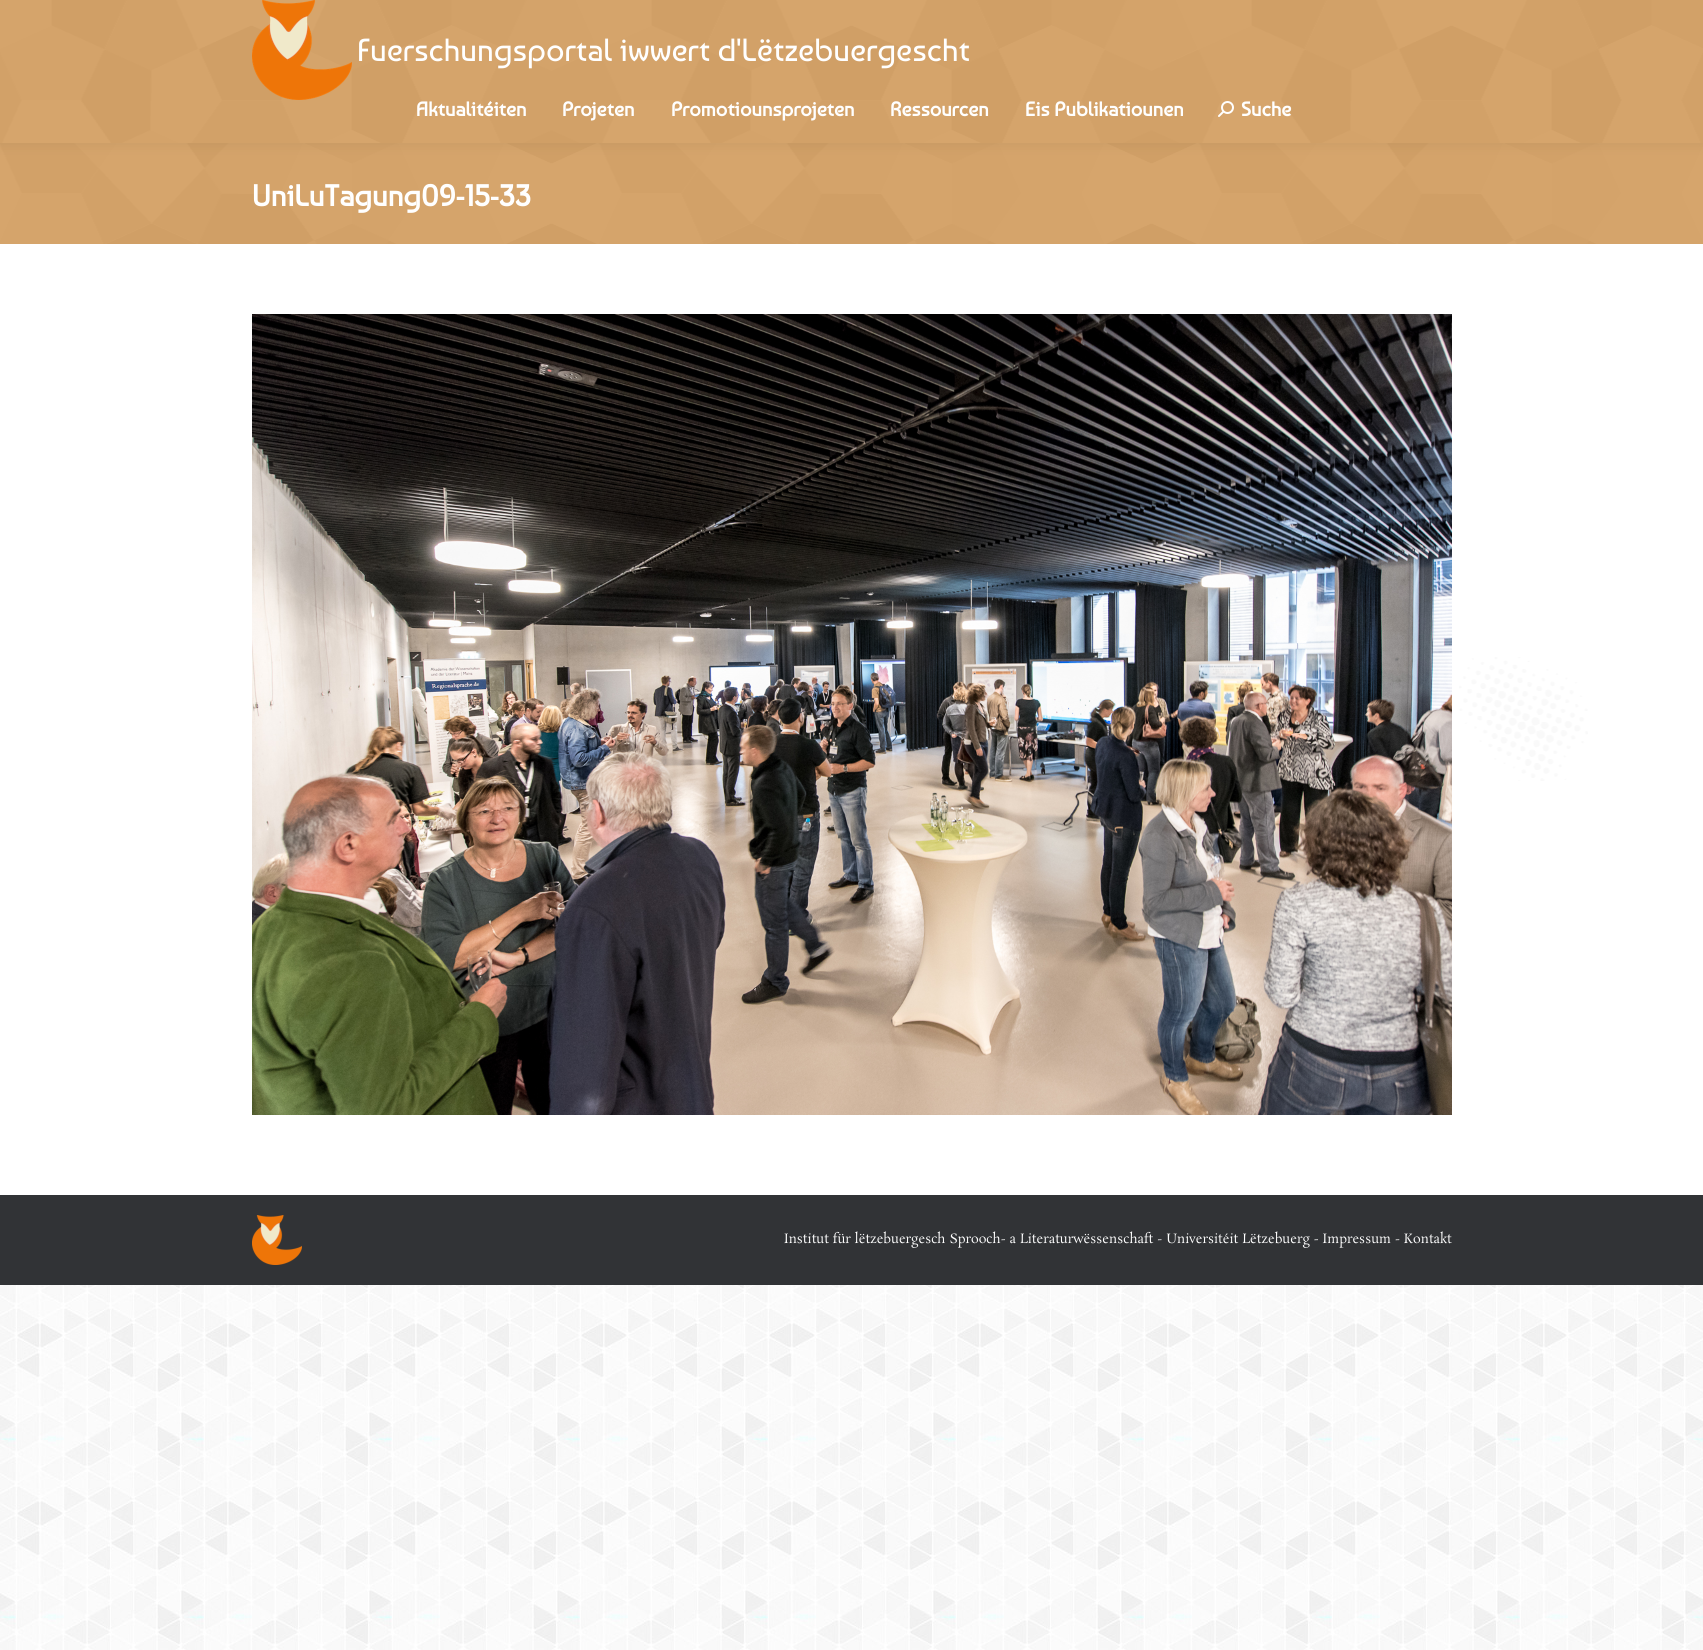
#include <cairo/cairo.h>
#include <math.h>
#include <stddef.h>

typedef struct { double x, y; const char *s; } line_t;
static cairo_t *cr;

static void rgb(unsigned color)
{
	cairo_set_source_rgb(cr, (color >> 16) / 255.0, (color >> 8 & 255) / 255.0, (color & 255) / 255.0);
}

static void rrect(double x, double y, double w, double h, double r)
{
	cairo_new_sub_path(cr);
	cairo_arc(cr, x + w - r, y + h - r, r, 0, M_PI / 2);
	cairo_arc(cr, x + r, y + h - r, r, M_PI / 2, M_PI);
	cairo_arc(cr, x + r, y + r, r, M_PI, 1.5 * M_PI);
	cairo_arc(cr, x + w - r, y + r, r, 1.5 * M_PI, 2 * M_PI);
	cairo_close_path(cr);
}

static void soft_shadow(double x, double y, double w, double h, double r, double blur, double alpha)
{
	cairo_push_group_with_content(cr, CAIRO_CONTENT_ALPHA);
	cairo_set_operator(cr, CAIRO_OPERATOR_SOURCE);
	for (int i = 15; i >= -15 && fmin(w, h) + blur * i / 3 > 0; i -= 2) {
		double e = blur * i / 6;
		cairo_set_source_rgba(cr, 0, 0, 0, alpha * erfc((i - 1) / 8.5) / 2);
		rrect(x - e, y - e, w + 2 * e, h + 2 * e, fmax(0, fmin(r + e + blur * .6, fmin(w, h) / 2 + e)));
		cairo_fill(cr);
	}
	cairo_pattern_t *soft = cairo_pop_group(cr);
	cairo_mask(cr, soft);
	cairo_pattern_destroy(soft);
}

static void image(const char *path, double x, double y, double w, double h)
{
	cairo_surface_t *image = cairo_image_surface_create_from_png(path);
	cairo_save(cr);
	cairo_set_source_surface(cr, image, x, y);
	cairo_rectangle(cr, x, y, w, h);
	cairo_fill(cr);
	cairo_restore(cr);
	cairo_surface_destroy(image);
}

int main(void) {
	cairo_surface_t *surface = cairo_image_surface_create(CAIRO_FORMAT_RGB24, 1703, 1650);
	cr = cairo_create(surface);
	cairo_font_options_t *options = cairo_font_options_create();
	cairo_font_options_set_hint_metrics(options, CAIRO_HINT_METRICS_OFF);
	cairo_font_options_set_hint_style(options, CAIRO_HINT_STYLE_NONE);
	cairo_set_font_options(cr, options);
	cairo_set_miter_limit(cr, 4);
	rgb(0xffffff);
	cairo_paint(cr);
	image("img/1.png", 0, 1285, 1703, 365);
	image("img/2.png", 1459, 657, 129, 124);
	rgb(0xd69851);
	cairo_rectangle(cr, 0, 143, 1703, 101);
	cairo_fill(cr);
	image("img/6.png", 0, 143, 1703, 101);
	rgb(0x000000);
	soft_shadow(-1, -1, 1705, 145, 0, 7.5, 0.07);
	rgb(0xd69851);
	cairo_rectangle(cr, 0, 0, 1703, 143);
	cairo_fill(cr);
	image("img/3.png", 0, 0, 1703, 143);
	image("img/4.png", 252, 0, 100, 100);
	image("img/5.png", 1218, 101, 16, 16);
	image("img/7.png", 252, 314, 1200, 801);
	rgb(0x313336);
	cairo_rectangle(cr, 0, 1195, 1703, 90);
	cairo_fill(cr);
	image("img/8.png", 252, 1215, 50, 50);
	cairo_select_font_face(cr, "Baumans", CAIRO_FONT_SLANT_NORMAL, CAIRO_FONT_WEIGHT_NORMAL);
	cairo_set_font_size(cr, 32);
	rgb(0xffffff);
	cairo_move_to(cr, 357, 61);
	cairo_show_text(cr, "Fuerschungsportal iwwert d'Lëtzebuergescht");
	cairo_select_font_face(cr, "Baumans", CAIRO_FONT_SLANT_NORMAL, CAIRO_FONT_WEIGHT_BOLD);
	cairo_set_font_size(cr, 20);
	{
		static const line_t items[] = {
			{416, 116, "Aktualitéiten"},
			{562, 116, "Projeten"},
			{671, 116, "Promotiounsprojeten"},
			{890, 116, "Ressourcen"},
			{1025, 116, "Eis Publikatiounen"},
			{1241, 116, "Suche"},
		};
		for (size_t i = 0; i < sizeof items / sizeof *items; i++) {
			cairo_move_to(cr, items[i].x, items[i].y);
			cairo_show_text(cr, items[i].s);
		}
	}
	cairo_set_font_size(cr, 30);
	cairo_move_to(cr, 252, 206);
	cairo_show_text(cr, "UniLuTagung09-15-33");
	cairo_select_font_face(cr, "Rosarivo", CAIRO_FONT_SLANT_NORMAL, CAIRO_FONT_WEIGHT_NORMAL);
	cairo_set_font_size(cr, 13);
	cairo_move_to(cr, 784, 1243);
	cairo_show_text(cr, "Institut für lëtzebuergesch Sprooch- a Literaturwëssenschaft - Universitéit Lëtzebuerg - Impressum - Kontakt");
	cairo_surface_write_to_png(surface, "page.png");
	cairo_font_options_destroy(options);
	cairo_destroy(cr);
	cairo_surface_destroy(surface);
	return 0;
}
